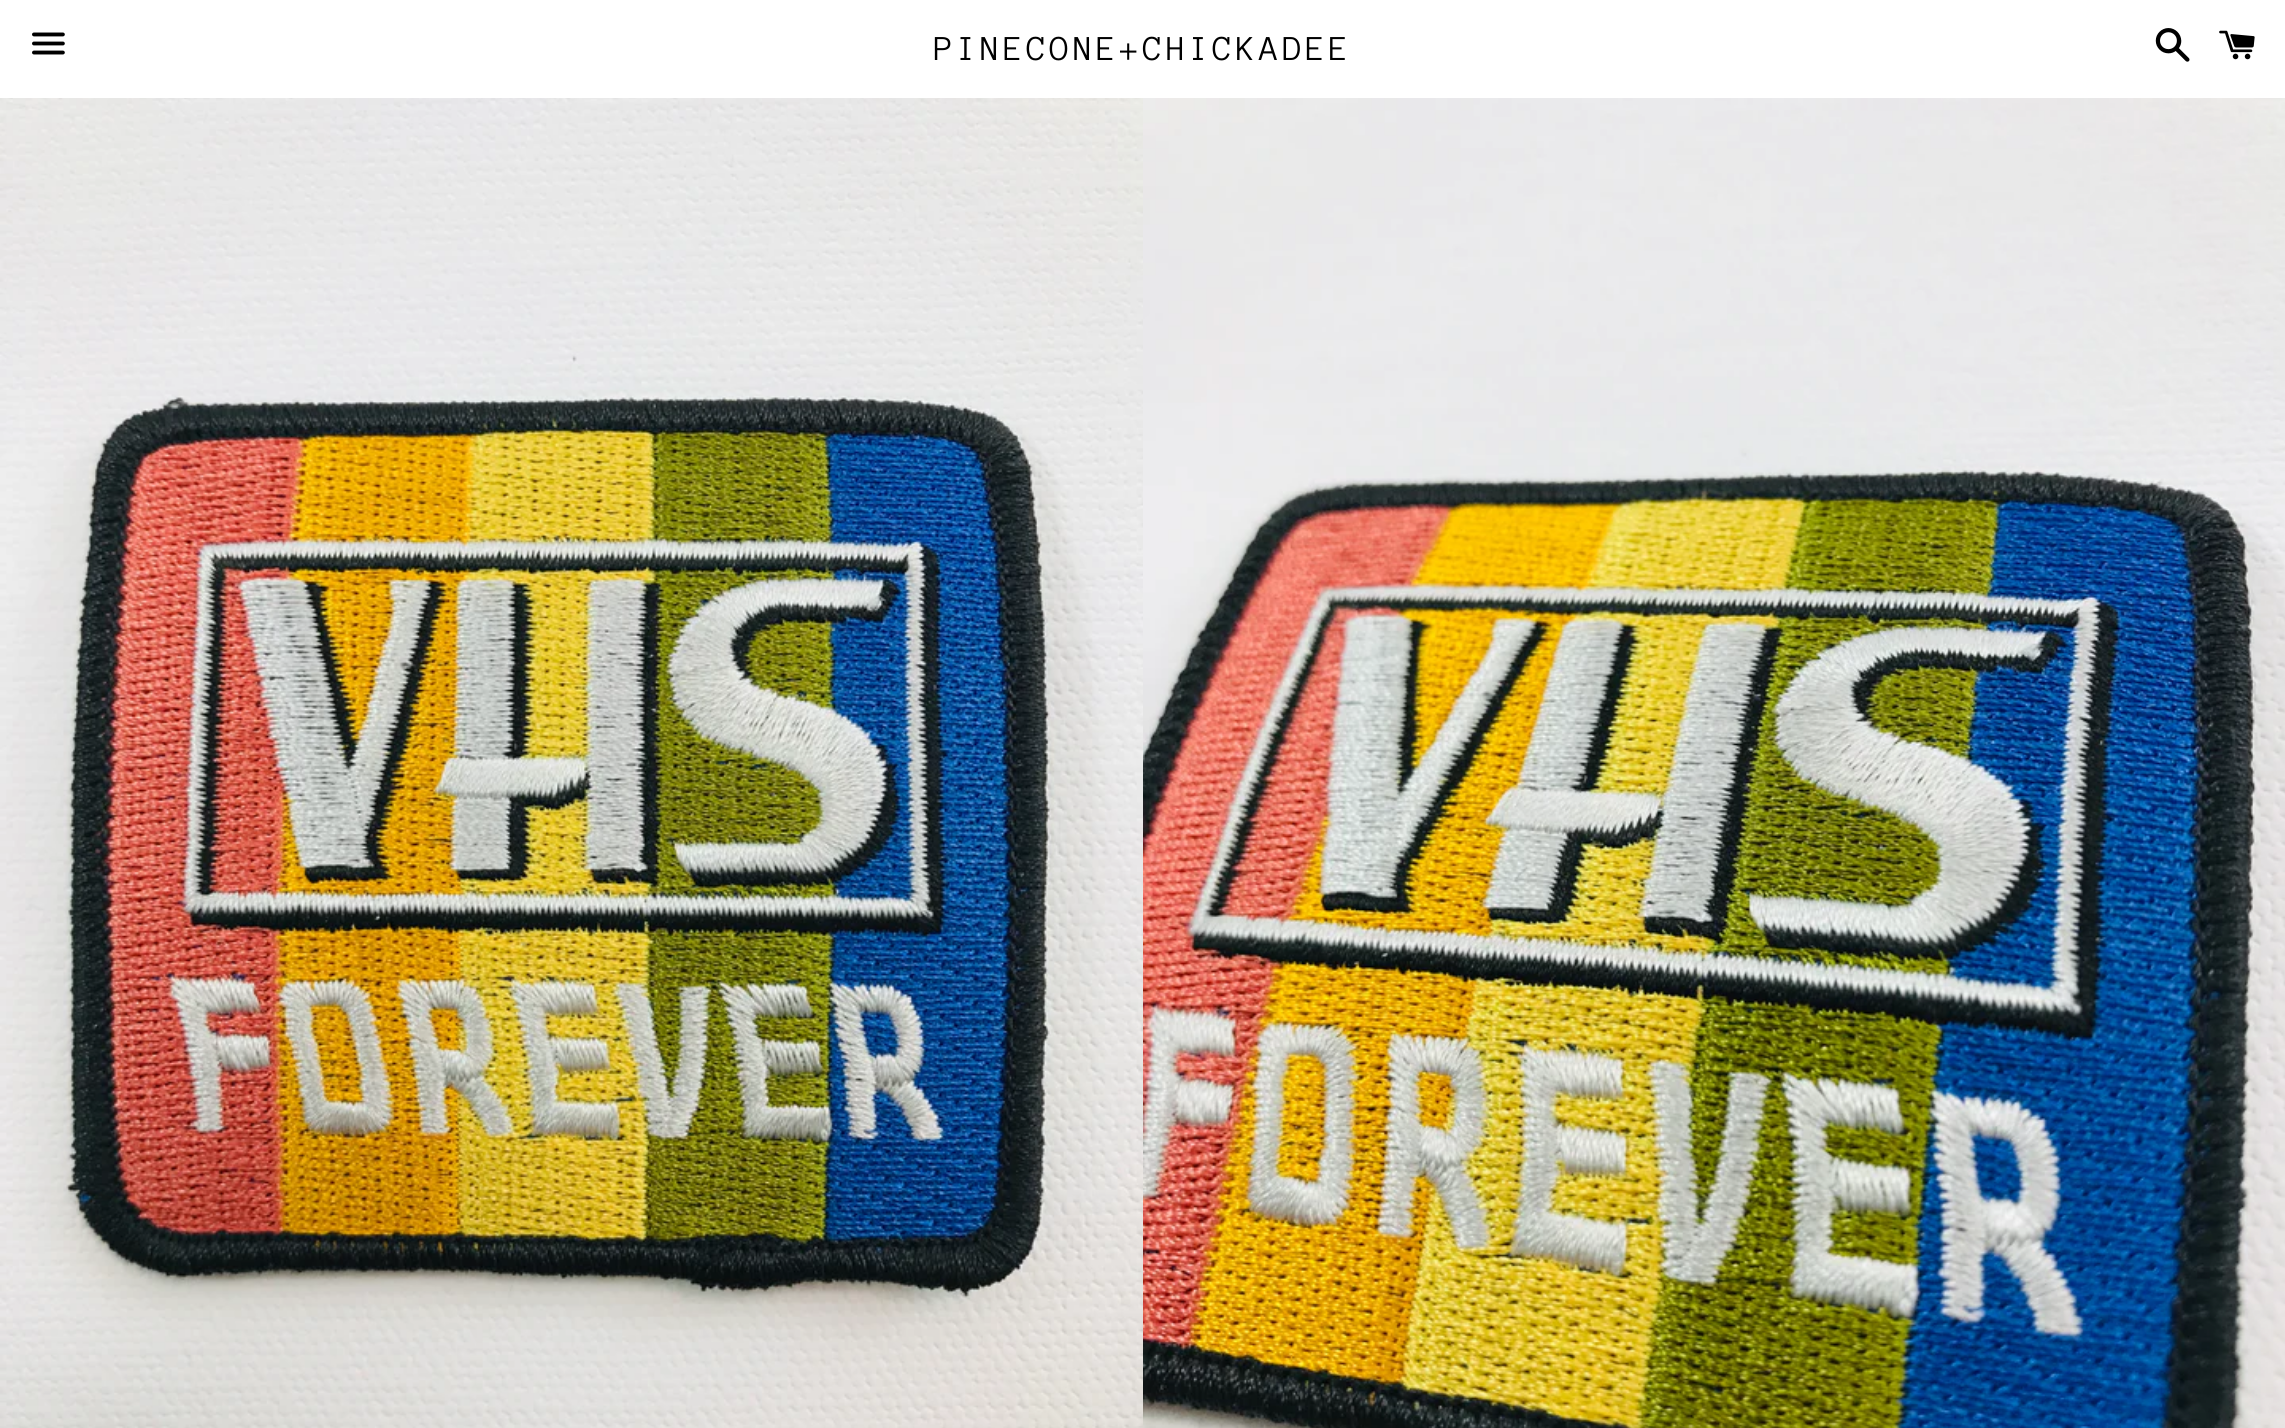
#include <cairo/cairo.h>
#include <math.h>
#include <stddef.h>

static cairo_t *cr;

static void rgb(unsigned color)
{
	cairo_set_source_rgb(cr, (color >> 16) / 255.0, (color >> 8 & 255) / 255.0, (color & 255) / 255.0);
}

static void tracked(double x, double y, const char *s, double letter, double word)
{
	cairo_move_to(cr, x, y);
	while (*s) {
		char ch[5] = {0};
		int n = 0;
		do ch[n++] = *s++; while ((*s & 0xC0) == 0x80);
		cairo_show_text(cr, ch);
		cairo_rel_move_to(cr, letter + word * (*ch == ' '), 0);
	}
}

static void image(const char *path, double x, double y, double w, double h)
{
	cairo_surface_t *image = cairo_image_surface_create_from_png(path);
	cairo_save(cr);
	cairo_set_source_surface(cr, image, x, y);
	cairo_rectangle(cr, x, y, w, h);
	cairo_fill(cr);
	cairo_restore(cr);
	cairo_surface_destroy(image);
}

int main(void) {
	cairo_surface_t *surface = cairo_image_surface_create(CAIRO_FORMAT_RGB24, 2285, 1428);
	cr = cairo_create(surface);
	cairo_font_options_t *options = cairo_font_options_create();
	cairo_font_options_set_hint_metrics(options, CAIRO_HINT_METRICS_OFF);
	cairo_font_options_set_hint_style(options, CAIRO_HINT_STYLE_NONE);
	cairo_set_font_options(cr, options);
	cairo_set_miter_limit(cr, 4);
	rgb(0xffffff);
	cairo_paint(cr);
	image("img/1.png", 32, 32, 33, 23);
	image("img/2.png", 2155, 28, 35, 34);
	image("img/3.png", 2219, 30, 36, 30);
	image("img/4.png", 0, 98, 1143, 1330);
	image("img/5.png", 1143, 98, 1142, 1330);
	cairo_select_font_face(cr, "Anonymous Pro", CAIRO_FONT_SLANT_NORMAL, CAIRO_FONT_WEIGHT_NORMAL);
	cairo_set_font_size(cr, 36);
	rgb(0x000000);
	tracked(934, 60, "PINECONE+CHICKADEE", 3.6, 0);
	cairo_surface_write_to_png(surface, "page.png");
	cairo_font_options_destroy(options);
	cairo_destroy(cr);
	cairo_surface_destroy(surface);
	return 0;
}
